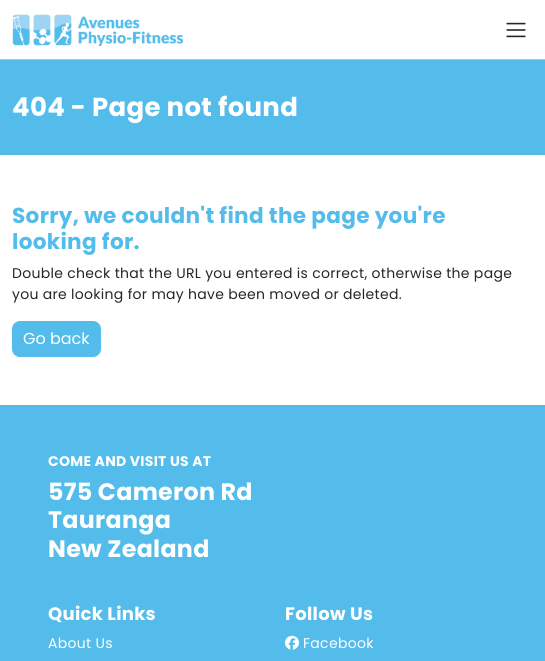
#include <cairo/cairo.h>
#include <math.h>
#include <stddef.h>

typedef struct { double x, y; const char *s; } line_t;
static cairo_t *cr;

static void rgb(unsigned color)
{
	cairo_set_source_rgb(cr, (color >> 16) / 255.0, (color >> 8 & 255) / 255.0, (color & 255) / 255.0);
}

static void tracked(double x, double y, const char *s, double letter, double word)
{
	cairo_move_to(cr, x, y);
	while (*s) {
		char ch[5] = {0};
		int n = 0;
		do ch[n++] = *s++; while ((*s & 0xC0) == 0x80);
		cairo_show_text(cr, ch);
		cairo_rel_move_to(cr, letter + word * (*ch == ' '), 0);
	}
}

static void rrect(double x, double y, double w, double h, double r)
{
	cairo_new_sub_path(cr);
	cairo_arc(cr, x + w - r, y + h - r, r, 0, M_PI / 2);
	cairo_arc(cr, x + r, y + h - r, r, M_PI / 2, M_PI);
	cairo_arc(cr, x + r, y + r, r, M_PI, 1.5 * M_PI);
	cairo_arc(cr, x + w - r, y + r, r, 1.5 * M_PI, 2 * M_PI);
	cairo_close_path(cr);
}

static void image(const char *path, double x, double y, double w, double h)
{
	cairo_surface_t *image = cairo_image_surface_create_from_png(path);
	cairo_save(cr);
	cairo_set_source_surface(cr, image, x, y);
	cairo_rectangle(cr, x, y, w, h);
	cairo_fill(cr);
	cairo_restore(cr);
	cairo_surface_destroy(image);
}

int main(void) {
	cairo_surface_t *surface = cairo_image_surface_create(CAIRO_FORMAT_RGB24, 545, 661);
	cr = cairo_create(surface);
	cairo_font_options_t *options = cairo_font_options_create();
	cairo_font_options_set_hint_metrics(options, CAIRO_HINT_METRICS_OFF);
	cairo_font_options_set_hint_style(options, CAIRO_HINT_STYLE_NONE);
	cairo_set_font_options(cr, options);
	cairo_set_miter_limit(cr, 4);
	rgb(0xffffff);
	cairo_paint(cr);
	rgb(0xbcbec2);
	cairo_rectangle(cr, 0, 59, 545, 1);
	cairo_fill(cr);
	image("img/1.png", 12, 14, 171, 32);
	image("img/2.png", 506, 22, 20, 16);
	rgb(0x54bceb);
	cairo_rectangle(cr, 0, 60, 545, 95);
	cairo_fill(cr);
	rrect(12, 321, 89, 36, 8);
	cairo_fill(cr);
	cairo_rectangle(cr, 0, 405, 545, 256);
	cairo_fill(cr);
	image("img/3.png", 285, 635, 14, 15);
	cairo_select_font_face(cr, "Poppins", CAIRO_FONT_SLANT_NORMAL, CAIRO_FONT_WEIGHT_BOLD);
	cairo_set_font_size(cr, 26);
	rgb(0xffffff);
	tracked(12, 116, "404 - Page not found", 0.3, 0);
	cairo_set_font_size(cr, 21.6);
	rgb(0x54bceb);
	tracked(12, 223, "Sorry, we couldn't find the page you're", 0.3, 0);
	tracked(12, 249, "looking for.", 0.3, 0);
	cairo_select_font_face(cr, "Poppins", CAIRO_FONT_SLANT_NORMAL, CAIRO_FONT_WEIGHT_NORMAL);
	cairo_set_font_size(cr, 14);
	rgb(0x242628);
	tracked(12, 278, "Double check that the URL you entered is correct, otherwise the page", 0.3, 0);
	tracked(12, 299, "you are looking for may have been moved or deleted.", 0.3, 0);
	cairo_set_font_size(cr, 16);
	rgb(0xffffff);
	cairo_move_to(cr, 23, 344);
	cairo_show_text(cr, "Go back");
	cairo_select_font_face(cr, "Poppins", CAIRO_FONT_SLANT_NORMAL, CAIRO_FONT_WEIGHT_BOLD);
	cairo_set_font_size(cr, 14);
	tracked(48, 466, "COME AND VISIT US AT", 0.3, 0);
	cairo_set_font_size(cr, 23.75);
	{
		static const line_t items[] = {
			{48, 500, "575 Cameron Rd"},
			{48, 528, "Tauranga"},
			{48, 557, "New Zealand"},
		};
		for (size_t i = 0; i < sizeof items / sizeof *items; i++) {
			tracked(items[i].x, items[i].y, items[i].s, 0.3, 0);
		}
	}
	cairo_set_font_size(cr, 18);
	tracked(48, 620, "Quick Links", 0.3, 0);
	cairo_select_font_face(cr, "Poppins", CAIRO_FONT_SLANT_NORMAL, CAIRO_FONT_WEIGHT_NORMAL);
	cairo_set_font_size(cr, 14);
	tracked(48, 648, "About Us", 0.3, 0);
	cairo_select_font_face(cr, "Poppins", CAIRO_FONT_SLANT_NORMAL, CAIRO_FONT_WEIGHT_BOLD);
	cairo_set_font_size(cr, 18);
	tracked(285, 620, "Follow Us", 0.3, 0);
	cairo_select_font_face(cr, "Poppins", CAIRO_FONT_SLANT_NORMAL, CAIRO_FONT_WEIGHT_NORMAL);
	cairo_set_font_size(cr, 14);
	tracked(303, 648, "Facebook", 0.3, 0);
	cairo_surface_write_to_png(surface, "page.png");
	cairo_font_options_destroy(options);
	cairo_destroy(cr);
	cairo_surface_destroy(surface);
	return 0;
}
